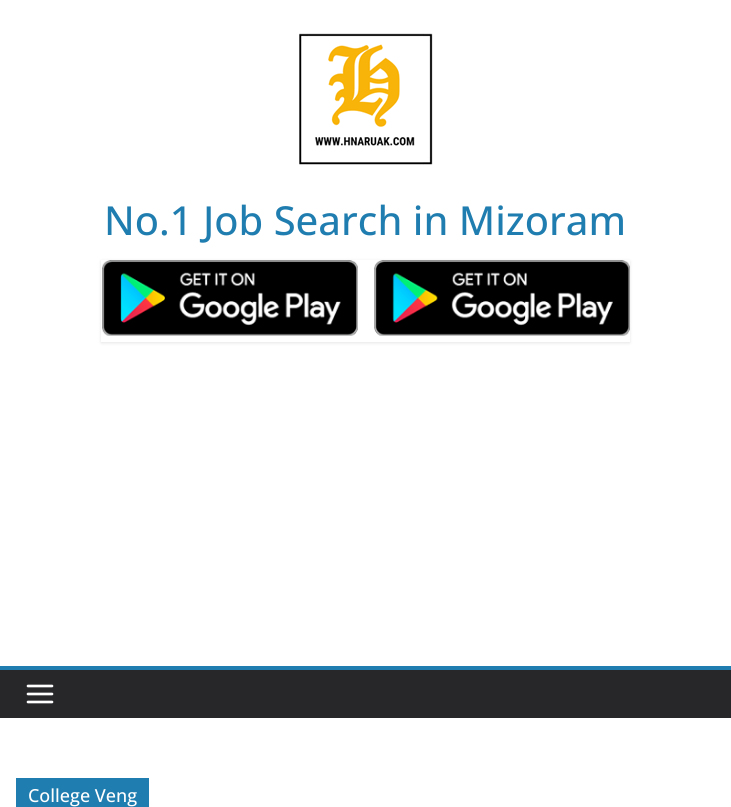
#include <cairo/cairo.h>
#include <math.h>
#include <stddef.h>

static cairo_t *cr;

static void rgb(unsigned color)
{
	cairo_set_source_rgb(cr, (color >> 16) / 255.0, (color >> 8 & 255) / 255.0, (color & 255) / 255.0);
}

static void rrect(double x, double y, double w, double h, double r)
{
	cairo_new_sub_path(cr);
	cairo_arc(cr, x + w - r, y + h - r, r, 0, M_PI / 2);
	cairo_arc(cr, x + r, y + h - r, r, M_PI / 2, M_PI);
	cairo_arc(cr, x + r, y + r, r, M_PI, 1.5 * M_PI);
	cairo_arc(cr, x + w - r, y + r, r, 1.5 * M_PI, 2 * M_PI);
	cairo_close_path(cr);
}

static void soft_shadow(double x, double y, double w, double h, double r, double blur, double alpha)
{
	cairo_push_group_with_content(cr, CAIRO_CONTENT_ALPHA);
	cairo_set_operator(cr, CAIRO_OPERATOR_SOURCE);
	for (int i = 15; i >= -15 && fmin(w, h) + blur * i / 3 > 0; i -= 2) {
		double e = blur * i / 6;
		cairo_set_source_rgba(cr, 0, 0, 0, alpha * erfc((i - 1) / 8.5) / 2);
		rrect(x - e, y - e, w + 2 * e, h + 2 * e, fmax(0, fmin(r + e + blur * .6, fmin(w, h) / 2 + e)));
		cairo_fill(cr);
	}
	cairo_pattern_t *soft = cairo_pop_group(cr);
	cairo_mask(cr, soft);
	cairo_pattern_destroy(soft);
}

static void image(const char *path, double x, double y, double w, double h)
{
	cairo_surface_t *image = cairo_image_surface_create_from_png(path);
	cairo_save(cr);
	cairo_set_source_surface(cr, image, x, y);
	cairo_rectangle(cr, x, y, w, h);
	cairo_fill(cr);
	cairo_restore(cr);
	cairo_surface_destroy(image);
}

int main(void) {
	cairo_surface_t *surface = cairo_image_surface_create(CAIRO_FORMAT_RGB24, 731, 807);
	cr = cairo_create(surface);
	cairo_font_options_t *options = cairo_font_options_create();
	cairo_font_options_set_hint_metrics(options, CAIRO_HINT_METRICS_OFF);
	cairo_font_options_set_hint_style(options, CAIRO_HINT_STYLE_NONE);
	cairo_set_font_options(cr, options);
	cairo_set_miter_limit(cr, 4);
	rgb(0xffffff);
	cairo_paint(cr);
	image("img/1.png", 299, 33, 134, 132);
	cairo_save(cr);
	cairo_set_fill_rule(cr, CAIRO_FILL_RULE_EVEN_ODD);
	cairo_new_path(cr);
	cairo_move_to(cr, 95, 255);
	cairo_line_to(cr, 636, 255);
	cairo_line_to(cr, 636, 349);
	cairo_line_to(cr, 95, 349);
	cairo_close_path(cr);
	cairo_move_to(cr, 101, 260);
	cairo_line_to(cr, 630, 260);
	cairo_line_to(cr, 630, 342);
	cairo_line_to(cr, 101, 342);
	cairo_close_path(cr);
	cairo_clip(cr);
	rgb(0x000000);
	soft_shadow(101, 261, 529, 82, 0, 1.5, 0.1);
	cairo_restore(cr);
	image("img/2.png", 102, 260, 528, 76);
	rgb(0x27272a);
	cairo_rectangle(cr, 0, 670, 731, 48);
	cairo_fill(cr);
	rgb(0x207daf);
	cairo_rectangle(cr, 0, 666, 731, 4);
	cairo_fill(cr);
	image("img/3.png", 26, 684, 28, 20);
	cairo_rectangle(cr, 16, 778, 133, 29);
	cairo_fill(cr);
	cairo_select_font_face(cr, "Open Sans Medium", CAIRO_FONT_SLANT_NORMAL, CAIRO_FONT_WEIGHT_NORMAL);
	cairo_set_font_size(cr, 40);
	cairo_move_to(cr, 104, 235);
	cairo_show_text(cr, "No.1 Job Search in Mizoram");
	cairo_set_font_size(cr, 18);
	rgb(0xffffff);
	cairo_move_to(cr, 28, 802);
	cairo_show_text(cr, "College Veng");
	cairo_surface_write_to_png(surface, "page.png");
	cairo_font_options_destroy(options);
	cairo_destroy(cr);
	cairo_surface_destroy(surface);
	return 0;
}
